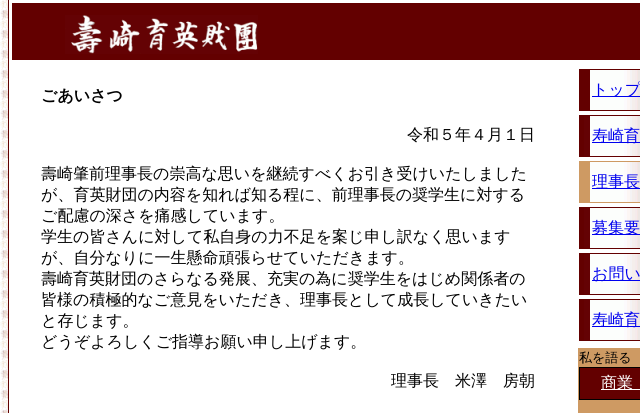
#include <cairo/cairo.h>
#include <math.h>
#include <stddef.h>

typedef struct { double x, y; const char *s; } line_t;
typedef struct { double x, y, w, h; unsigned color; } box_t;
static cairo_t *cr;

static void rgb(unsigned color)
{
	cairo_set_source_rgb(cr, (color >> 16) / 255.0, (color >> 8 & 255) / 255.0, (color & 255) / 255.0);
}

static void image(const char *path, double x, double y, double w, double h)
{
	cairo_surface_t *image = cairo_image_surface_create_from_png(path);
	cairo_save(cr);
	cairo_set_source_surface(cr, image, x, y);
	cairo_rectangle(cr, x, y, w, h);
	cairo_fill(cr);
	cairo_restore(cr);
	cairo_surface_destroy(image);
}

int main(void) {
	cairo_surface_t *surface = cairo_image_surface_create(CAIRO_FORMAT_RGB24, 640, 413);
	cr = cairo_create(surface);
	cairo_font_options_t *options = cairo_font_options_create();
	cairo_font_options_set_hint_metrics(options, CAIRO_HINT_METRICS_OFF);
	cairo_font_options_set_hint_style(options, CAIRO_HINT_STYLE_NONE);
	cairo_set_font_options(cr, options);
	cairo_set_miter_limit(cr, 4);
	rgb(0xffffff);
	cairo_paint(cr);
	image("img/1.png", 0, 0, 8, 413);
	rgb(0x630000);
	cairo_rectangle(cr, 8, 0, 1, 413);
	cairo_fill(cr);
	cairo_rectangle(cr, 12, 3, 628, 57);
	cairo_fill(cr);
	image("img/2.png", 65, 15, 193, 39);
	cairo_rectangle(cr, 579, 69, 61, 1);
	cairo_fill(cr);
	cairo_rectangle(cr, 579, 70, 11, 40);
	cairo_fill(cr);
	image("img/3.png", 590, 70, 50, 40);
	{
		static const box_t items[] = {
			{592, 96, 48, 1, 0x0000ee},
			{579, 110, 61, 1, 0x630000},
			{579, 115, 61, 42, 0x630000},
		};
		for (size_t i = 0; i < sizeof items / sizeof *items; i++) {
			rgb(items[i].color);
			cairo_rectangle(cr, items[i].x, items[i].y, items[i].w, items[i].h);
			cairo_fill(cr);
		}
	}
	image("img/4.png", 584, 116, 56, 40);
	{
		static const box_t items[] = {
			{592, 142, 48, 1, 0x0000ee},
			{579, 161, 61, 1, 0xce9a63},
			{579, 162, 11, 40, 0xce9a63},
		};
		for (size_t i = 0; i < sizeof items / sizeof *items; i++) {
			rgb(items[i].color);
			cairo_rectangle(cr, items[i].x, items[i].y, items[i].w, items[i].h);
			cairo_fill(cr);
		}
	}
	image("img/3.png", 590, 162, 50, 40);
	{
		static const box_t items[] = {
			{592, 188, 48, 1, 0x0000ee},
			{579, 202, 61, 1, 0xce9a63},
			{579, 207, 61, 42, 0x630000},
		};
		for (size_t i = 0; i < sizeof items / sizeof *items; i++) {
			rgb(items[i].color);
			cairo_rectangle(cr, items[i].x, items[i].y, items[i].w, items[i].h);
			cairo_fill(cr);
		}
	}
	image("img/4.png", 584, 208, 56, 40);
	rgb(0x0000ee);
	cairo_rectangle(cr, 592, 234, 48, 1);
	cairo_fill(cr);
	rgb(0x630000);
	cairo_rectangle(cr, 579, 253, 61, 42);
	cairo_fill(cr);
	image("img/4.png", 584, 254, 56, 40);
	rgb(0x0000ee);
	cairo_rectangle(cr, 592, 280, 48, 1);
	cairo_fill(cr);
	rgb(0x630000);
	cairo_rectangle(cr, 579, 299, 61, 42);
	cairo_fill(cr);
	image("img/4.png", 584, 300, 56, 40);
	{
		static const box_t items[] = {
			{592, 326, 48, 1, 0x0000ee},
			{578, 348, 62, 65, 0xce9a63},
			{579, 367, 61, 33, 0x000000},
			{580, 368, 60, 31, 0x630000},
			{601, 389, 39, 1, 0xffffff},
		};
		for (size_t i = 0; i < sizeof items / sizeof *items; i++) {
			rgb(items[i].color);
			cairo_rectangle(cr, items[i].x, items[i].y, items[i].w, items[i].h);
			cairo_fill(cr);
		}
	}
	cairo_select_font_face(cr, "WenQuanYi Zen Hei", CAIRO_FONT_SLANT_NORMAL, CAIRO_FONT_WEIGHT_BOLD);
	cairo_set_font_size(cr, 16);
	rgb(0x000000);
	cairo_move_to(cr, 41, 101);
	cairo_show_text(cr, "ごあいさつ");
	cairo_select_font_face(cr, "WenQuanYi Zen Hei Medium", CAIRO_FONT_SLANT_NORMAL, CAIRO_FONT_WEIGHT_NORMAL);
	{
		static const line_t items[] = {
			{407, 140, "令和５年４月１日"},
			{41, 179, "壽崎肇前理事長の崇高な思いを継続すべくお引き受けいたしました"},
			{41, 200, "が、育英財団の内容を知れば知る程に、前理事長の奨学生に対する"},
			{41, 221, "ご配慮の深さを痛感しています。"},
			{41, 242, "学生の皆さんに対して私自身の力不足を案じ申し訳なく思います"},
			{41, 263, "が、自分なりに一生懸命頑張らせていただきます。"},
			{41, 284, "壽崎育英財団のさらなる発展、充実の為に奨学生をはじめ関係者の"},
			{41, 305, "皆様の積極的なご意見をいただき、理事長として成長していきたい"},
			{41, 326, "と存じます。"},
			{41, 347, "どうぞよろしくご指導お願い申し上げます。"},
			{391, 386, "理事長　米澤　房朝"},
		};
		for (size_t i = 0; i < sizeof items / sizeof *items; i++) {
			cairo_move_to(cr, items[i].x, items[i].y);
			cairo_show_text(cr, items[i].s);
		}
	}
	rgb(0x0000ee);
	{
		static const line_t items[] = {
			{592, 95, "トップ"},
			{592, 141, "寿崎育"},
			{592, 187, "理事長"},
			{592, 233, "募集要"},
			{592, 279, "お問い"},
			{592, 325, "寿崎育"},
		};
		for (size_t i = 0; i < sizeof items / sizeof *items; i++) {
			cairo_move_to(cr, items[i].x, items[i].y);
			cairo_show_text(cr, items[i].s);
		}
	}
	cairo_set_font_size(cr, 13);
	rgb(0x000000);
	cairo_move_to(cr, 579, 362);
	cairo_show_text(cr, "私を語る");
	cairo_set_font_size(cr, 16);
	rgb(0xffffff);
	cairo_move_to(cr, 601, 388);
	cairo_show_text(cr, "商業");
	cairo_surface_write_to_png(surface, "page.png");
	cairo_font_options_destroy(options);
	cairo_destroy(cr);
	cairo_surface_destroy(surface);
	return 0;
}
